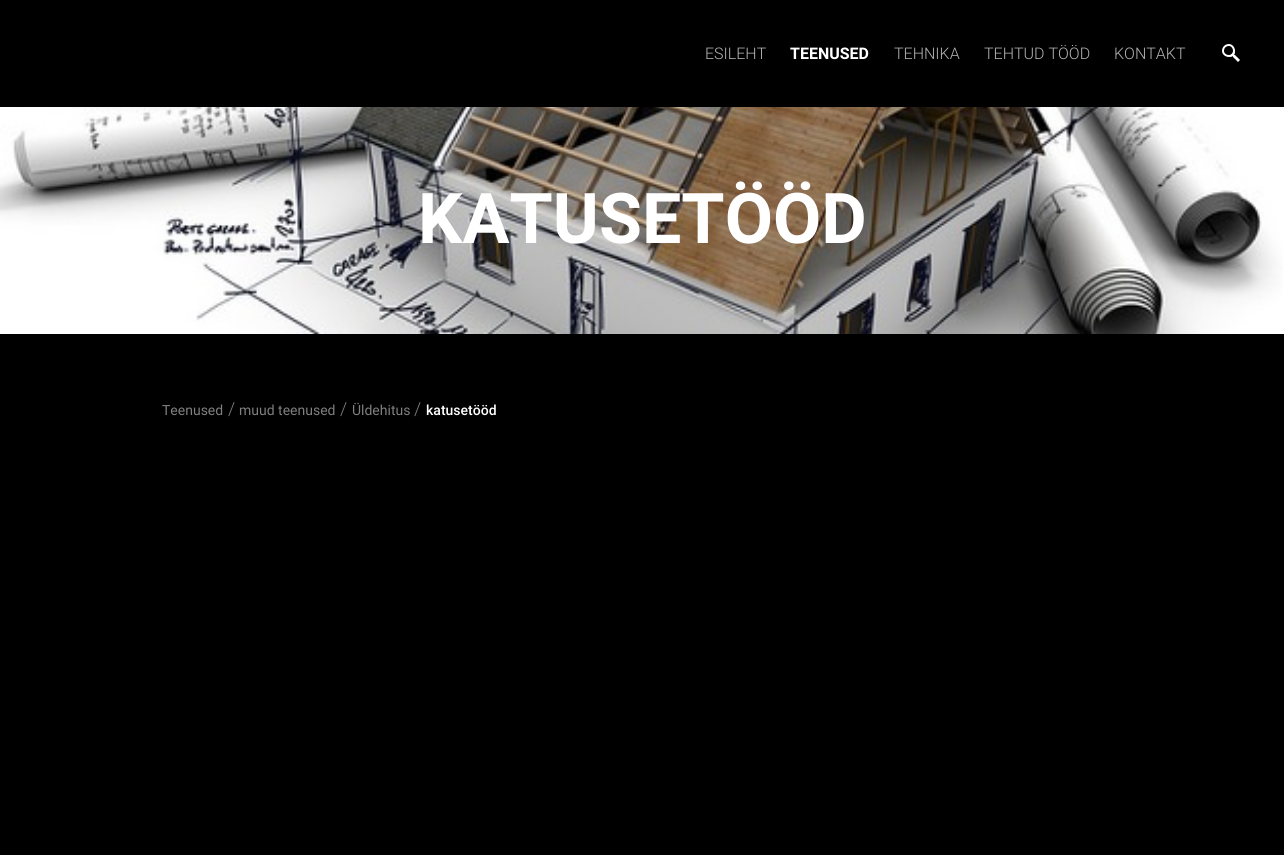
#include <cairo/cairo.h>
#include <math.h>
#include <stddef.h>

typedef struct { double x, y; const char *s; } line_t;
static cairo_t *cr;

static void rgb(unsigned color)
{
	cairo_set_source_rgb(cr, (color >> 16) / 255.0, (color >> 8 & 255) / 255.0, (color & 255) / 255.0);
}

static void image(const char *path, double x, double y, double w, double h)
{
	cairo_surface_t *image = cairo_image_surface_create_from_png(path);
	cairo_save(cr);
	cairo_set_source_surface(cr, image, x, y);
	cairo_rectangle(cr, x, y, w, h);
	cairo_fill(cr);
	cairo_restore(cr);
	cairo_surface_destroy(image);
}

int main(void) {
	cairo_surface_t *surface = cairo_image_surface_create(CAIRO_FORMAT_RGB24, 1284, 855);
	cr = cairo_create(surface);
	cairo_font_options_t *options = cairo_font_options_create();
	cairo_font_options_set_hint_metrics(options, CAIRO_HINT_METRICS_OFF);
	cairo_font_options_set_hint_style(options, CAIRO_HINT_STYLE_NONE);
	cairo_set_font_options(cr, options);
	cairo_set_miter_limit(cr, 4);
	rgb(0xffffff);
	cairo_paint(cr);
	rgb(0x000000);
	cairo_rectangle(cr, 0, 0, 1284, 107);
	cairo_fill(cr);
	image("img/1.png", 1222, 44, 18, 18);
	image("img/2.png", 0, 107, 1283, 227);
	cairo_rectangle(cr, 0, 334, 1284, 521);
	cairo_fill(cr);
	cairo_select_font_face(cr, "Roboto Light", CAIRO_FONT_SLANT_NORMAL, CAIRO_FONT_WEIGHT_NORMAL);
	cairo_set_font_size(cr, 16);
	rgb(0xb3b3b3);
	cairo_move_to(cr, 705, 59);
	cairo_show_text(cr, "ESILEHT");
	cairo_select_font_face(cr, "Roboto", CAIRO_FONT_SLANT_NORMAL, CAIRO_FONT_WEIGHT_BOLD);
	rgb(0xffffff);
	cairo_move_to(cr, 790, 59);
	cairo_show_text(cr, "TEENUSED");
	cairo_select_font_face(cr, "Roboto Light", CAIRO_FONT_SLANT_NORMAL, CAIRO_FONT_WEIGHT_NORMAL);
	rgb(0xb3b3b3);
	{
		static const line_t items[] = {
			{894, 59, "TEHNIKA"},
			{984, 59, "TEHTUD TÖÖD"},
			{1114, 59, "KONTAKT"},
		};
		for (size_t i = 0; i < sizeof items / sizeof *items; i++) {
			cairo_move_to(cr, items[i].x, items[i].y);
			cairo_show_text(cr, items[i].s);
		}
	}
	cairo_select_font_face(cr, "Roboto", CAIRO_FONT_SLANT_NORMAL, CAIRO_FONT_WEIGHT_BOLD);
	cairo_set_font_size(cr, 70);
	rgb(0xffffff);
	cairo_move_to(cr, 418, 243);
	cairo_show_text(cr, "KATUSETÖÖD");
	cairo_select_font_face(cr, "Roboto", CAIRO_FONT_SLANT_NORMAL, CAIRO_FONT_WEIGHT_NORMAL);
	cairo_set_font_size(cr, 14);
	rgb(0x808080);
	cairo_move_to(cr, 162, 415);
	cairo_show_text(cr, "Teenused");
	cairo_select_font_face(cr, "Roboto Light", CAIRO_FONT_SLANT_NORMAL, CAIRO_FONT_WEIGHT_NORMAL);
	cairo_set_font_size(cr, 18);
	cairo_move_to(cr, 228, 415);
	cairo_show_text(cr, "/");
	cairo_select_font_face(cr, "Roboto", CAIRO_FONT_SLANT_NORMAL, CAIRO_FONT_WEIGHT_NORMAL);
	cairo_set_font_size(cr, 14);
	cairo_move_to(cr, 239, 415);
	cairo_show_text(cr, "muud teenused");
	cairo_select_font_face(cr, "Roboto Light", CAIRO_FONT_SLANT_NORMAL, CAIRO_FONT_WEIGHT_NORMAL);
	cairo_set_font_size(cr, 18);
	cairo_move_to(cr, 340, 415);
	cairo_show_text(cr, "/");
	cairo_select_font_face(cr, "Roboto", CAIRO_FONT_SLANT_NORMAL, CAIRO_FONT_WEIGHT_NORMAL);
	cairo_set_font_size(cr, 14);
	cairo_move_to(cr, 352, 415);
	cairo_show_text(cr, "Üldehitus");
	cairo_select_font_face(cr, "Roboto Light", CAIRO_FONT_SLANT_NORMAL, CAIRO_FONT_WEIGHT_NORMAL);
	cairo_set_font_size(cr, 18);
	cairo_move_to(cr, 414, 415);
	cairo_show_text(cr, "/");
	cairo_select_font_face(cr, "Roboto Medium", CAIRO_FONT_SLANT_NORMAL, CAIRO_FONT_WEIGHT_NORMAL);
	cairo_set_font_size(cr, 14);
	rgb(0xffffff);
	cairo_move_to(cr, 426, 415);
	cairo_show_text(cr, "katusetööd");
	cairo_surface_write_to_png(surface, "page.png");
	cairo_font_options_destroy(options);
	cairo_destroy(cr);
	cairo_surface_destroy(surface);
	return 0;
}
